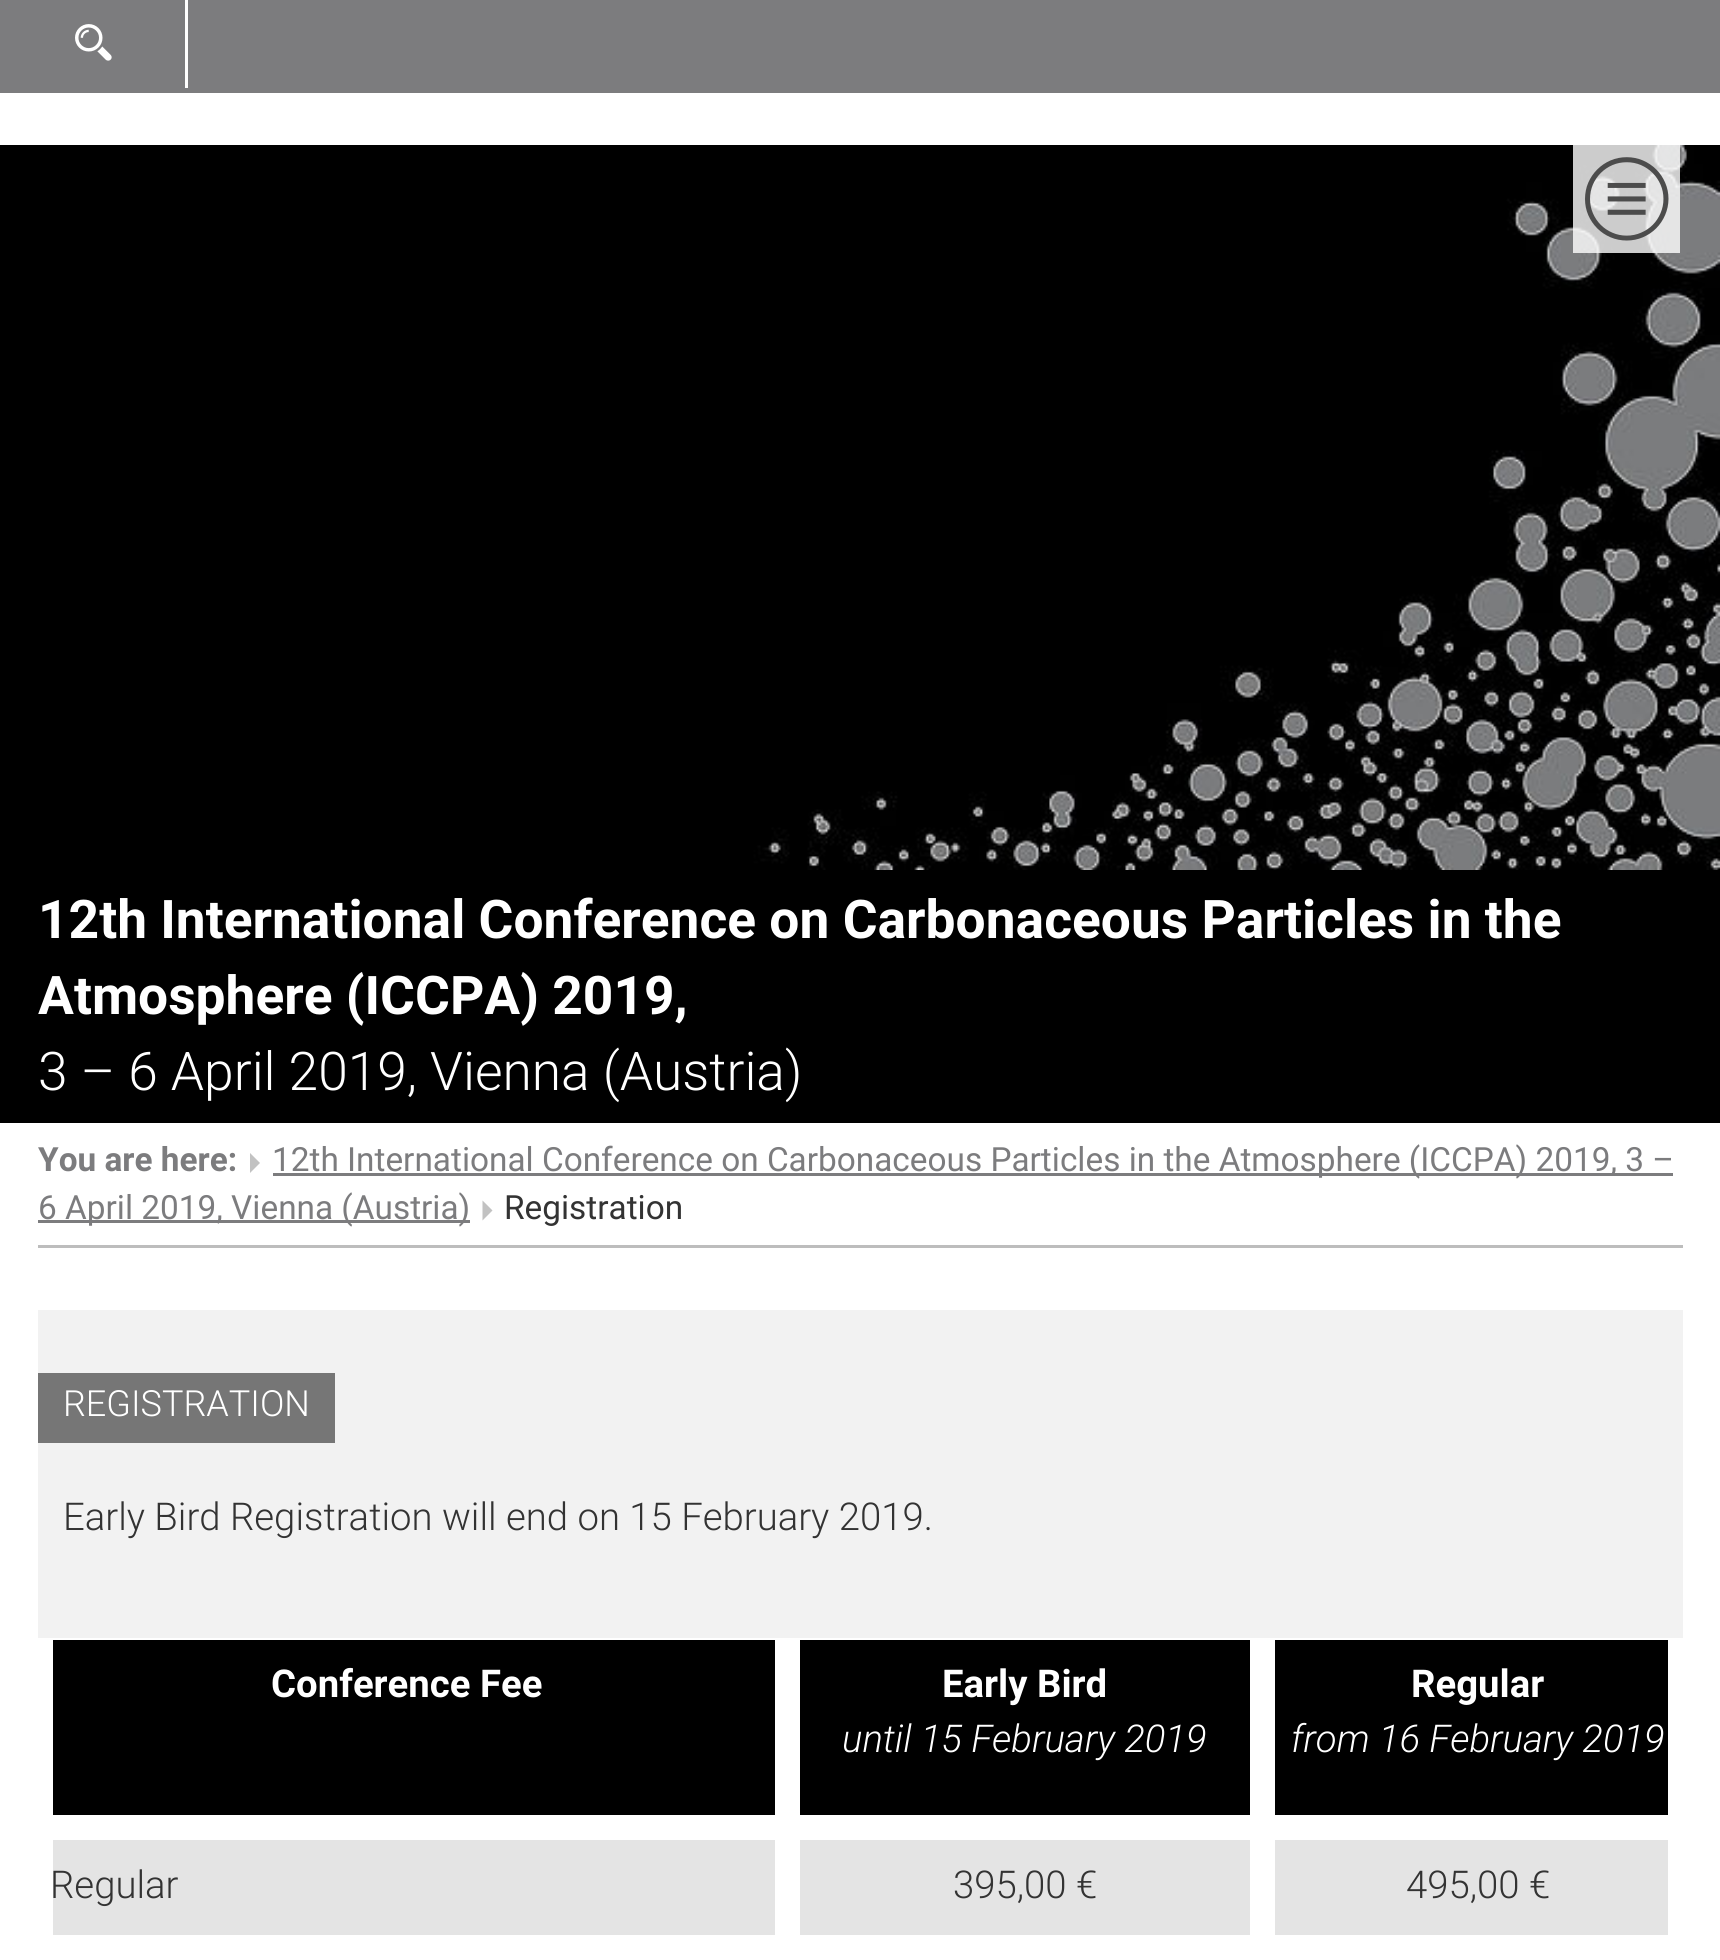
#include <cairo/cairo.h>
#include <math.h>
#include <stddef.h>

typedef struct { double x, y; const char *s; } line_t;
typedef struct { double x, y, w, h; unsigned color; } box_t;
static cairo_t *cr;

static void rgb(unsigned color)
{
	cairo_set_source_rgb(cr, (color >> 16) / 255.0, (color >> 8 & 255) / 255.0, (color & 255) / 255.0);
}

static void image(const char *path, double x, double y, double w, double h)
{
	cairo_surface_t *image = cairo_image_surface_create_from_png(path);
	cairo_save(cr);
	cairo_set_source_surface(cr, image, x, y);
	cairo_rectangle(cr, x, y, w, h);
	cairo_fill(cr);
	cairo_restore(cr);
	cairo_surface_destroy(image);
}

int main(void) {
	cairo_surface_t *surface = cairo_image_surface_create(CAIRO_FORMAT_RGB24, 1720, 1960);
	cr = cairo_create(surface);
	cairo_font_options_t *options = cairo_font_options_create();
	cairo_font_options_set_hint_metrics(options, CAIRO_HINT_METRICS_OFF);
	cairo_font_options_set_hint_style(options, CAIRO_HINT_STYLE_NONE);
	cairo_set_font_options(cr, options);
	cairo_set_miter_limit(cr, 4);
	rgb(0xffffff);
	cairo_paint(cr);
	rgb(0x7c7c7e);
	cairo_rectangle(cr, 0, 0, 1720, 93);
	cairo_fill(cr);
	rgb(0xffffff);
	cairo_rectangle(cr, 185, 0, 3, 88);
	cairo_fill(cr);
	image("img/1.png", 75, 24, 37, 37);
	image("img/3.png", 0, 145, 1720, 725);
	cairo_set_source_rgba(cr, 1, 1, 1, 0.8);
	cairo_rectangle(cr, 1573, 145, 107, 108);
	cairo_fill(cr);
	image("img/2.png", 1585, 157, 84, 84);
	rgb(0x000000);
	cairo_rectangle(cr, 0, 870, 1720, 253);
	cairo_fill(cr);
	rgb(0xc2c2c2);
	cairo_new_path(cr);
	cairo_move_to(cr, 250, 1153);
	cairo_line_to(cr, 250, 1173);
	cairo_line_to(cr, 260, 1163);
	cairo_close_path(cr);
	cairo_fill(cr);
	rgb(0x7c7c7e);
	cairo_rectangle(cr, 273, 1173, 1400, 3);
	cairo_fill(cr);
	cairo_rectangle(cr, 38, 1220, 432, 3);
	cairo_fill(cr);
	rgb(0xc2c2c2);
	cairo_new_path(cr);
	cairo_move_to(cr, 482.5, 1200.5);
	cairo_line_to(cr, 482.5, 1220.5);
	cairo_line_to(cr, 492.5, 1210.5);
	cairo_close_path(cr);
	cairo_fill(cr);
	{
		static const box_t items[] = {
			{38, 1245, 1645, 3, 0xbdbdbd},
			{38, 1310, 1645, 328, 0xf2f2f2},
			{38, 1373, 297, 70, 0x767676},
			{53, 1640, 722, 175, 0x000000},
			{800, 1640, 450, 175, 0x000000},
			{1275, 1640, 393, 175, 0x000000},
			{53, 1840, 722, 95, 0xe4e4e4},
			{800, 1840, 450, 95, 0xe4e4e4},
			{1275, 1840, 393, 95, 0xe4e4e4},
		};
		for (size_t i = 0; i < sizeof items / sizeof *items; i++) {
			rgb(items[i].color);
			cairo_rectangle(cr, items[i].x, items[i].y, items[i].w, items[i].h);
			cairo_fill(cr);
		}
	}
	cairo_select_font_face(cr, "Roboto", CAIRO_FONT_SLANT_NORMAL, CAIRO_FONT_WEIGHT_BOLD);
	cairo_set_font_size(cr, 53.3);
	rgb(0xffffff);
	cairo_move_to(cr, 38, 938);
	cairo_show_text(cr, "12th International Conference on Carbonaceous Particles in the");
	cairo_move_to(cr, 38, 1014);
	cairo_show_text(cr, "Atmosphere (ICCPA) 2019,");
	cairo_select_font_face(cr, "Roboto Light", CAIRO_FONT_SLANT_NORMAL, CAIRO_FONT_WEIGHT_NORMAL);
	cairo_move_to(cr, 38, 1090);
	cairo_show_text(cr, "3 – 6 April 2019, Vienna (Austria)");
	cairo_select_font_face(cr, "Roboto", CAIRO_FONT_SLANT_NORMAL, CAIRO_FONT_WEIGHT_BOLD);
	cairo_set_font_size(cr, 33.35);
	rgb(0x7c7c7e);
	cairo_move_to(cr, 38, 1171);
	cairo_show_text(cr, "You are here:");
	cairo_select_font_face(cr, "Roboto", CAIRO_FONT_SLANT_NORMAL, CAIRO_FONT_WEIGHT_NORMAL);
	cairo_move_to(cr, 272, 1171);
	cairo_show_text(cr, "12th International Conference on Carbonaceous Particles in the Atmosphere (ICCPA) 2019, 3 –");
	cairo_move_to(cr, 38, 1219);
	cairo_show_text(cr, "6 April 2019, Vienna (Austria)");
	rgb(0x333333);
	cairo_move_to(cr, 504, 1219);
	cairo_show_text(cr, "Registration");
	cairo_select_font_face(cr, "Roboto Light", CAIRO_FONT_SLANT_NORMAL, CAIRO_FONT_WEIGHT_NORMAL);
	cairo_set_font_size(cr, 36);
	rgb(0xffffff);
	cairo_move_to(cr, 63, 1416);
	cairo_show_text(cr, "REGISTRATION");
	cairo_set_font_size(cr, 38.3);
	rgb(0x333333);
	cairo_move_to(cr, 63, 1530);
	cairo_show_text(cr, "Early Bird Registration will end on 15 February 2019.");
	cairo_select_font_face(cr, "Roboto", CAIRO_FONT_SLANT_NORMAL, CAIRO_FONT_WEIGHT_BOLD);
	rgb(0xffffff);
	cairo_move_to(cr, 271, 1697);
	cairo_show_text(cr, "Conference Fee");
	cairo_move_to(cr, 942, 1697);
	cairo_show_text(cr, "Early Bird");
	cairo_select_font_face(cr, "Roboto Light", CAIRO_FONT_SLANT_ITALIC, CAIRO_FONT_WEIGHT_NORMAL);
	cairo_move_to(cr, 842, 1752);
	cairo_show_text(cr, "until 15 February 2019");
	cairo_select_font_face(cr, "Roboto", CAIRO_FONT_SLANT_NORMAL, CAIRO_FONT_WEIGHT_BOLD);
	cairo_move_to(cr, 1411, 1697);
	cairo_show_text(cr, "Regular");
	cairo_select_font_face(cr, "Roboto Light", CAIRO_FONT_SLANT_ITALIC, CAIRO_FONT_WEIGHT_NORMAL);
	cairo_move_to(cr, 1291, 1752);
	cairo_show_text(cr, "from 16 February 2019");
	cairo_select_font_face(cr, "Roboto Light", CAIRO_FONT_SLANT_NORMAL, CAIRO_FONT_WEIGHT_NORMAL);
	rgb(0x333333);
	{
		static const line_t items[] = {
			{50, 1898, "Regular"},
			{953, 1898, "395,00 €"},
			{1406, 1898, "495,00 €"},
		};
		for (size_t i = 0; i < sizeof items / sizeof *items; i++) {
			cairo_move_to(cr, items[i].x, items[i].y);
			cairo_show_text(cr, items[i].s);
		}
	}
	cairo_surface_write_to_png(surface, "page.png");
	cairo_font_options_destroy(options);
	cairo_destroy(cr);
	cairo_surface_destroy(surface);
	return 0;
}
